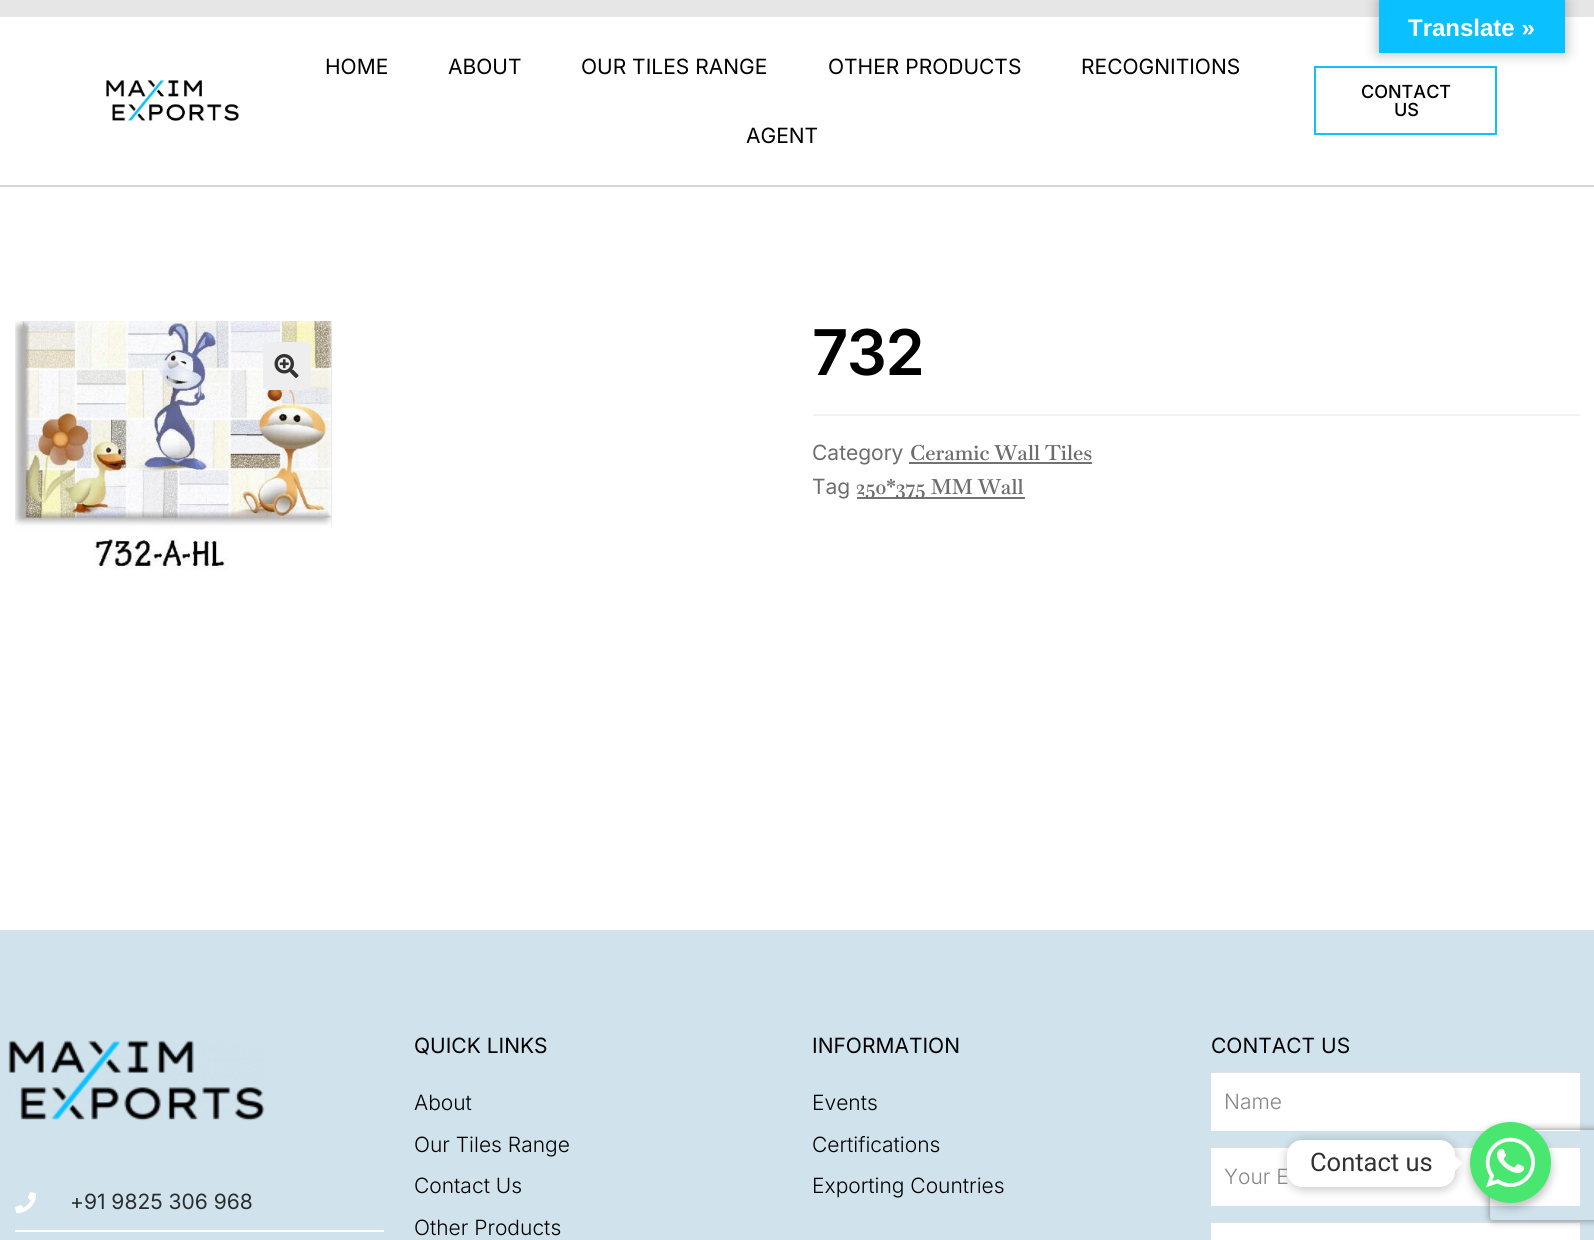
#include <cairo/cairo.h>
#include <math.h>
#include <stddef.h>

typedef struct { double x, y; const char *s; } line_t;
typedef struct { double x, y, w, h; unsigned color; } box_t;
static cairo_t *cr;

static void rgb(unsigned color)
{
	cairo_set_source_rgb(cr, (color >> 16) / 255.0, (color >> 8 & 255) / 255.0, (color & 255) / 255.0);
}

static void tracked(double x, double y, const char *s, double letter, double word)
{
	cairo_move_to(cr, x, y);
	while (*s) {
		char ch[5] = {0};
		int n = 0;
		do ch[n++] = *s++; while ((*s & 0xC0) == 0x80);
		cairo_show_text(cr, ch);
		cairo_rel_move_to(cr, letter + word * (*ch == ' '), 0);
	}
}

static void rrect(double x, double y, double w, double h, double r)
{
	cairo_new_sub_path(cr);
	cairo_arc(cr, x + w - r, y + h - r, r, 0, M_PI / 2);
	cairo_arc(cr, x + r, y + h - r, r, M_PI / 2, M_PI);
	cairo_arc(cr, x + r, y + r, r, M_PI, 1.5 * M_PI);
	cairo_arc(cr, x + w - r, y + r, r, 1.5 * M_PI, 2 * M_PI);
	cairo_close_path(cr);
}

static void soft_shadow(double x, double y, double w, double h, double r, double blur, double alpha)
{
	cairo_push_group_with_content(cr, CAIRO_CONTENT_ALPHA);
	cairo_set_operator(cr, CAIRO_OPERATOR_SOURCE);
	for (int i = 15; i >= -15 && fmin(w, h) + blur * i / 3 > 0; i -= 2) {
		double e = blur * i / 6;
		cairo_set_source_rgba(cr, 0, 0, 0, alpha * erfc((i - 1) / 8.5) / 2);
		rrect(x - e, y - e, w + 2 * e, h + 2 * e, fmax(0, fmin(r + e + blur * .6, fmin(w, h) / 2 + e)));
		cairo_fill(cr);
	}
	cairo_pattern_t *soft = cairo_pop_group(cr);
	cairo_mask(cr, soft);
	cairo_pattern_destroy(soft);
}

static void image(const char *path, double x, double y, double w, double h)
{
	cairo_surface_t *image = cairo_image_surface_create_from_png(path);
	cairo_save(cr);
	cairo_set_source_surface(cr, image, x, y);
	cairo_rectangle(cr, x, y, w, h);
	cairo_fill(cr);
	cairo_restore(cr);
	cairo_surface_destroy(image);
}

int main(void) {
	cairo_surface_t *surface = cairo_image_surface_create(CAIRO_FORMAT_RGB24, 1594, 1240);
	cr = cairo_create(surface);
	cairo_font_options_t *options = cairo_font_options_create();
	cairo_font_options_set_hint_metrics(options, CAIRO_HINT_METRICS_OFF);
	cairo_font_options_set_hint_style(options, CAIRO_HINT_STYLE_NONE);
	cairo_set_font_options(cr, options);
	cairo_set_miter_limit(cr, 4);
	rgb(0xffffff);
	cairo_paint(cr);
	rgb(0xe6e6e6);
	cairo_rectangle(cr, 0, 0, 1594, 17);
	cairo_fill(cr);
	cairo_rectangle(cr, 1315, 67, 181, 67);
	rgb(0x0fc2fc);
	cairo_stroke(cr);
	rgb(0x000000);
	soft_shadow(1379, 0, 186, 53, 0, 7, 0.3);
	rgb(0x0ac0fe);
	cairo_rectangle(cr, 1379, 0, 186, 53);
	cairo_fill(cr);
	rgb(0xd6d6d6);
	cairo_rectangle(cr, 0, 185, 1594, 2);
	cairo_fill(cr);
	image("img/1.png", 106, 79, 134, 44);
	image("img/2.png", 15, 321, 317, 249);
	image("img/3.png", 331, 321, 1, 208);
	rgb(0xeeeeee);
	rrect(263, 342, 48, 48, 5);
	cairo_fill(cr);
	image("img/4.png", 274, 354, 25, 24);
	{
		static const box_t items[] = {
			{813, 414, 767, 2, 0xf2f2f2},
			{909, 462, 183, 2, 0x727272},
			{857, 497, 168, 2, 0x727272},
			{0, 930, 1594, 310, 0xd0e3ed},
			{1211, 1073, 369, 58, 0xffffff},
			{1211, 1071, 369, 2, 0xdfdfdf},
			{1211, 1148, 369, 58, 0xffffff},
			{1211, 1146, 369, 2, 0xdfdfdf},
			{1211, 1223, 369, 17, 0xffffff},
			{1211, 1221, 369, 2, 0xdfdfdf},
		};
		for (size_t i = 0; i < sizeof items / sizeof *items; i++) {
			rgb(items[i].color);
			cairo_rectangle(cr, items[i].x, items[i].y, items[i].w, items[i].h);
			cairo_fill(cr);
		}
	}
	image("img/5.png", 8, 1040, 257, 81);
	image("img/6.png", 15, 1192, 21, 22);
	rgb(0xffffff);
	cairo_rectangle(cr, 15, 1230, 369, 2);
	cairo_fill(cr);
	rgb(0x000000);
	soft_shadow(1470, 1127, 81, 81, 40.5, 4.5, 0.25);
	cairo_save(cr);
	cairo_set_fill_rule(cr, CAIRO_FILL_RULE_EVEN_ODD);
	cairo_new_path(cr);
	cairo_move_to(cr, 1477, 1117);
	cairo_line_to(cr, 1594, 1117);
	cairo_line_to(cr, 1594, 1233);
	cairo_line_to(cr, 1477, 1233);
	cairo_close_path(cr);
	cairo_move_to(cr, 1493, 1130);
	cairo_line_to(cr, 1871, 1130);
	cairo_curve_to(cr, 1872.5, 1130, 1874, 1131.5, 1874, 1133);
	cairo_line_to(cr, 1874, 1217);
	cairo_curve_to(cr, 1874, 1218.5, 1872.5, 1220, 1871, 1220);
	cairo_line_to(cr, 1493, 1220);
	cairo_curve_to(cr, 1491.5, 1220, 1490, 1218.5, 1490, 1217);
	cairo_line_to(cr, 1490, 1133);
	cairo_curve_to(cr, 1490, 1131.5, 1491.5, 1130, 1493, 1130);
	cairo_close_path(cr);
	cairo_clip(cr);
	rgb(0x808080);
	soft_shadow(1490, 1130, 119, 90, 3, 4, 1);
	cairo_restore(cr);
	image("img/7.png", 1470, 1122, 81, 81);
	soft_shadow(1290, 1142, 165, 46, 15, 6, 0.15);
	soft_shadow(1287, 1142, 168, 46, 15, 6, 0.15);
	rgb(0xffffff);
	cairo_new_path(cr);
	cairo_move_to(cr, 1455, 1171);
	cairo_line_to(cr, 1455, 1156);
	cairo_line_to(cr, 1462.5, 1163);
	cairo_close_path(cr);
	cairo_fill(cr);
	cairo_select_font_face(cr, "Liberation Sans", CAIRO_FONT_SLANT_NORMAL, CAIRO_FONT_WEIGHT_BOLD);
	cairo_set_font_size(cr, 24);
	cairo_move_to(cr, 1408, 36);
	cairo_show_text(cr, "Translate »");
	cairo_select_font_face(cr, "Inter", CAIRO_FONT_SLANT_NORMAL, CAIRO_FONT_WEIGHT_NORMAL);
	cairo_set_font_size(cr, 21);
	rgb(0x000000);
	{
		static const line_t items[] = {
			{325, 74, "HOME"},
			{448, 74, "ABOUT"},
			{581, 74, "OUR TILES RANGE"},
			{828, 74, "OTHER PRODUCTS"},
			{1081, 74, "RECOGNITIONS"},
			{746, 143, "AGENT"},
		};
		for (size_t i = 0; i < sizeof items / sizeof *items; i++) {
			cairo_move_to(cr, items[i].x, items[i].y);
			cairo_show_text(cr, items[i].s);
		}
	}
	cairo_select_font_face(cr, "Inter Medium", CAIRO_FONT_SLANT_NORMAL, CAIRO_FONT_WEIGHT_NORMAL);
	cairo_set_font_size(cr, 18);
	cairo_move_to(cr, 1361, 98);
	cairo_show_text(cr, "CONTACT");
	cairo_move_to(cr, 1394, 116);
	cairo_show_text(cr, "US");
	cairo_select_font_face(cr, "Inter SemiBold", CAIRO_FONT_SLANT_NORMAL, CAIRO_FONT_WEIGHT_NORMAL);
	cairo_set_font_size(cr, 63);
	tracked(812, 375, "732", -1.5, 0);
	cairo_select_font_face(cr, "Inter", CAIRO_FONT_SLANT_NORMAL, CAIRO_FONT_WEIGHT_NORMAL);
	cairo_set_font_size(cr, 21);
	rgb(0x6d6d6d);
	cairo_move_to(cr, 812, 460);
	cairo_show_text(cr, "Category");
	cairo_select_font_face(cr, "Baskervville SemiBold", CAIRO_FONT_SLANT_NORMAL, CAIRO_FONT_WEIGHT_NORMAL);
	cairo_move_to(cr, 910, 460);
	cairo_show_text(cr, "Ceramic Wall Tiles");
	cairo_select_font_face(cr, "Inter", CAIRO_FONT_SLANT_NORMAL, CAIRO_FONT_WEIGHT_NORMAL);
	cairo_move_to(cr, 812, 494);
	cairo_show_text(cr, "Tag");
	cairo_select_font_face(cr, "Baskervville SemiBold", CAIRO_FONT_SLANT_NORMAL, CAIRO_FONT_WEIGHT_NORMAL);
	cairo_move_to(cr, 856, 494);
	cairo_show_text(cr, "250*375 MM Wall");
	cairo_select_font_face(cr, "Inter", CAIRO_FONT_SLANT_NORMAL, CAIRO_FONT_WEIGHT_NORMAL);
	rgb(0x000000);
	cairo_move_to(cr, 414, 1053);
	cairo_show_text(cr, "QUICK LINKS");
	cairo_select_font_face(cr, "Inter Light", CAIRO_FONT_SLANT_NORMAL, CAIRO_FONT_WEIGHT_NORMAL);
	{
		static const line_t items[] = {
			{414, 1110, "About"},
			{414, 1152, "Our Tiles Range"},
			{414, 1193, "Contact Us"},
			{414, 1235, "Other Products"},
		};
		for (size_t i = 0; i < sizeof items / sizeof *items; i++) {
			cairo_move_to(cr, items[i].x, items[i].y);
			cairo_show_text(cr, items[i].s);
		}
	}
	cairo_select_font_face(cr, "Inter", CAIRO_FONT_SLANT_NORMAL, CAIRO_FONT_WEIGHT_NORMAL);
	cairo_move_to(cr, 812, 1053);
	cairo_show_text(cr, "INFORMATION");
	cairo_select_font_face(cr, "Inter Light", CAIRO_FONT_SLANT_NORMAL, CAIRO_FONT_WEIGHT_NORMAL);
	{
		static const line_t items[] = {
			{812, 1110, "Events"},
			{812, 1152, "Certifications"},
			{812, 1193, "Exporting Countries"},
		};
		for (size_t i = 0; i < sizeof items / sizeof *items; i++) {
			cairo_move_to(cr, items[i].x, items[i].y);
			cairo_show_text(cr, items[i].s);
		}
	}
	cairo_select_font_face(cr, "Inter", CAIRO_FONT_SLANT_NORMAL, CAIRO_FONT_WEIGHT_NORMAL);
	cairo_move_to(cr, 1211, 1053);
	cairo_show_text(cr, "CONTACT US");
	cairo_select_font_face(cr, "Inter Light", CAIRO_FONT_SLANT_NORMAL, CAIRO_FONT_WEIGHT_NORMAL);
	rgb(0x868686);
	cairo_move_to(cr, 1224, 1109);
	cairo_show_text(cr, "Name");
	cairo_move_to(cr, 1224, 1184);
	cairo_show_text(cr, "Your E");
	cairo_select_font_face(cr, "Inter", CAIRO_FONT_SLANT_NORMAL, CAIRO_FONT_WEIGHT_NORMAL);
	rgb(0x2a2d2f);
	cairo_move_to(cr, 70, 1209);
	cairo_show_text(cr, "+91 9825 306 968");
	rgb(0xffffff);
	rrect(1287, 1140, 168, 47, 15);
	cairo_fill(cr);
	cairo_select_font_face(cr, "Roboto", CAIRO_FONT_SLANT_NORMAL, CAIRO_FONT_WEIGHT_NORMAL);
	cairo_set_font_size(cr, 25.5);
	rgb(0x333333);
	cairo_move_to(cr, 1310, 1171);
	cairo_show_text(cr, "Contact us");
	cairo_surface_write_to_png(surface, "page.png");
	cairo_font_options_destroy(options);
	cairo_destroy(cr);
	cairo_surface_destroy(surface);
	return 0;
}
